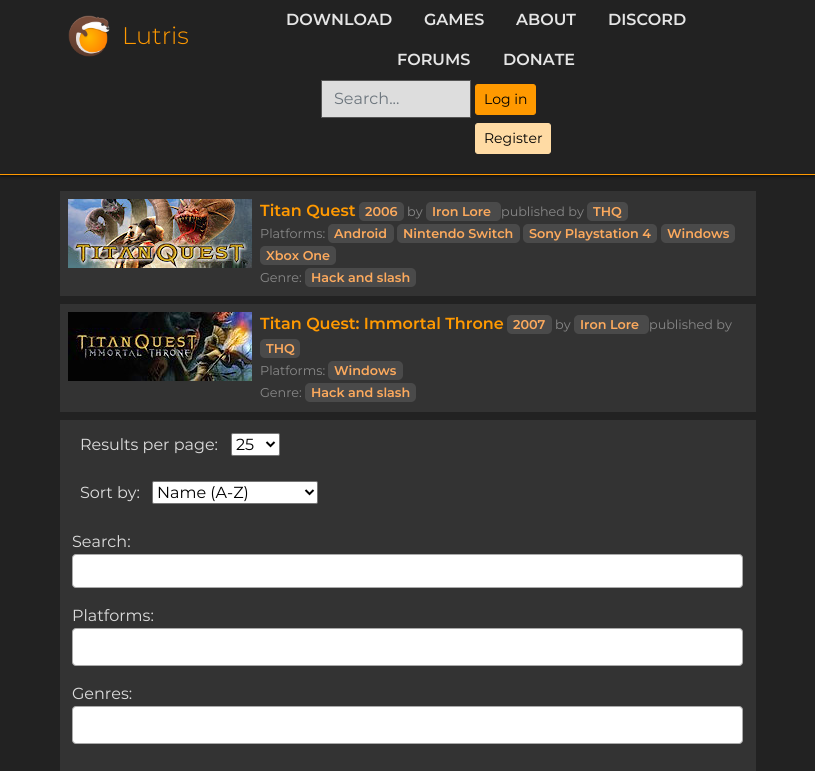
#include <cairo/cairo.h>
#include <math.h>
#include <stddef.h>

typedef struct { double x, y; const char *s; } line_t;
static cairo_t *cr;

static void rgb(unsigned color)
{
	cairo_set_source_rgb(cr, (color >> 16) / 255.0, (color >> 8 & 255) / 255.0, (color & 255) / 255.0);
}

static void rrect(double x, double y, double w, double h, double r)
{
	cairo_new_sub_path(cr);
	cairo_arc(cr, x + w - r, y + h - r, r, 0, M_PI / 2);
	cairo_arc(cr, x + r, y + h - r, r, M_PI / 2, M_PI);
	cairo_arc(cr, x + r, y + r, r, M_PI, 1.5 * M_PI);
	cairo_arc(cr, x + w - r, y + r, r, 1.5 * M_PI, 2 * M_PI);
	cairo_close_path(cr);
}

static void soft_shadow(double x, double y, double w, double h, double r, double blur, double alpha)
{
	cairo_push_group_with_content(cr, CAIRO_CONTENT_ALPHA);
	cairo_set_operator(cr, CAIRO_OPERATOR_SOURCE);
	for (int i = 15; i >= -15 && fmin(w, h) + blur * i / 3 > 0; i -= 2) {
		double e = blur * i / 6;
		cairo_set_source_rgba(cr, 0, 0, 0, alpha * erfc((i - 1) / 8.5) / 2);
		rrect(x - e, y - e, w + 2 * e, h + 2 * e, fmax(0, fmin(r + e + blur * .6, fmin(w, h) / 2 + e)));
		cairo_fill(cr);
	}
	cairo_pattern_t *soft = cairo_pop_group(cr);
	cairo_mask(cr, soft);
	cairo_pattern_destroy(soft);
}

static void image(const char *path, double x, double y, double w, double h)
{
	cairo_surface_t *image = cairo_image_surface_create_from_png(path);
	cairo_save(cr);
	cairo_set_source_surface(cr, image, x, y);
	cairo_rectangle(cr, x, y, w, h);
	cairo_fill(cr);
	cairo_restore(cr);
	cairo_surface_destroy(image);
}

int main(void) {
	cairo_surface_t *surface = cairo_image_surface_create(CAIRO_FORMAT_RGB24, 815, 771);
	cr = cairo_create(surface);
	cairo_font_options_t *options = cairo_font_options_create();
	cairo_font_options_set_hint_metrics(options, CAIRO_HINT_METRICS_OFF);
	cairo_font_options_set_hint_style(options, CAIRO_HINT_STYLE_NONE);
	cairo_set_font_options(cr, options);
	cairo_set_miter_limit(cr, 4);
	rgb(0x222222);
	cairo_paint(cr);
	cairo_save(cr);
	cairo_rectangle(cr, 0, 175, 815, 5);
	cairo_clip(cr);
	rgb(0x000000);
	soft_shadow(0, 0, 815, 175, 0, 2.5, 1);
	cairo_restore(cr);
	rgb(0xff9900);
	cairo_rectangle(cr, 0, 174, 815, 1);
	cairo_fill(cr);
	image("img/1.png", 68, 15, 42, 42);
	rgb(0xdddddd);
	cairo_rectangle(cr, 321.5, 80.5, 149, 37);
	cairo_fill_preserve(cr);
	rgb(0x555555);
	cairo_set_line_width(cr, 1);
	cairo_stroke(cr);
	rgb(0xff9900);
	rrect(475.5, 84.5, 60, 30, 2.5);
	cairo_fill_preserve(cr);
	cairo_stroke(cr);
	rgb(0xffdba4);
	rrect(475.5, 123.5, 75, 30, 2.5);
	cairo_fill_preserve(cr);
	cairo_stroke(cr);
	rgb(0x333333);
	cairo_rectangle(cr, 60, 191, 696, 105);
	cairo_fill(cr);
	image("img/2.png", 68, 199, 184, 69);
	rgb(0x4a4a4a);
	rrect(359, 202, 45, 19, 5);
	cairo_fill(cr);
	rrect(426, 202, 75, 19, 5);
	cairo_fill(cr);
	rrect(587, 202, 41, 19, 5);
	cairo_fill(cr);
	rrect(328, 224, 66, 19, 5);
	cairo_fill(cr);
	rrect(397, 224, 123, 19, 5);
	cairo_fill(cr);
	rrect(523, 224, 134, 19, 5);
	cairo_fill(cr);
	rrect(661, 224, 74, 19, 5);
	cairo_fill(cr);
	rrect(260, 246, 76, 19, 5);
	cairo_fill(cr);
	rrect(305, 268, 111, 19, 5);
	cairo_fill(cr);
	rgb(0x333333);
	cairo_rectangle(cr, 60, 304, 696, 108);
	cairo_fill(cr);
	image("img/3.png", 68, 312, 184, 69);
	rgb(0x4a4a4a);
	rrect(507, 315, 45, 19, 5);
	cairo_fill(cr);
	rrect(574, 315, 75, 19, 5);
	cairo_fill(cr);
	rrect(260, 339, 40, 19, 5);
	cairo_fill(cr);
	rrect(328, 361, 75, 19, 5);
	cairo_fill(cr);
	rrect(305, 383, 111, 19, 5);
	cairo_fill(cr);
	rgb(0x333333);
	cairo_rectangle(cr, 60, 420, 696, 351);
	cairo_fill(cr);
	rgb(0xffffff);
	rrect(231.5, 433.5, 48, 22, 1.5);
	cairo_fill_preserve(cr);
	rgb(0x767676);
	cairo_stroke(cr);
	cairo_new_path(cr);
	cairo_move_to(cr, 266.5, 442);
	cairo_line_to(cr, 270.5, 446);
	cairo_line_to(cr, 274.5, 442);
	rgb(0x000000);
	cairo_set_line_width(cr, 2);
	cairo_stroke(cr);
	rgb(0xffffff);
	rrect(152.5, 481.5, 165, 22, 1.5);
	cairo_fill_preserve(cr);
	rgb(0x767676);
	cairo_set_line_width(cr, 1);
	cairo_stroke(cr);
	cairo_new_path(cr);
	cairo_move_to(cr, 305.5, 490);
	cairo_line_to(cr, 309.5, 494);
	cairo_line_to(cr, 313.5, 490);
	rgb(0x000000);
	cairo_set_line_width(cr, 2);
	cairo_stroke(cr);
	rgb(0xffffff);
	rrect(72.5, 554.5, 670, 33, 3.5);
	cairo_fill_preserve(cr);
	rgb(0xaaaaaa);
	cairo_set_line_width(cr, 1);
	cairo_stroke(cr);
	rgb(0xffffff);
	rrect(72.5, 628.5, 670, 37, 3.5);
	cairo_fill_preserve(cr);
	rgb(0xaaaaaa);
	cairo_stroke(cr);
	rgb(0xffffff);
	rrect(72.5, 706.5, 670, 37, 3.5);
	cairo_fill_preserve(cr);
	rgb(0xaaaaaa);
	cairo_stroke(cr);
	cairo_select_font_face(cr, "Montserrat Light", CAIRO_FONT_SLANT_NORMAL, CAIRO_FONT_WEIGHT_NORMAL);
	cairo_set_font_size(cr, 24);
	rgb(0xff9900);
	cairo_move_to(cr, 122, 44);
	cairo_show_text(cr, "Lutris");
	cairo_select_font_face(cr, "Montserrat SemiBold", CAIRO_FONT_SLANT_NORMAL, CAIRO_FONT_WEIGHT_NORMAL);
	cairo_set_font_size(cr, 16);
	rgb(0xe5e5e5);
	{
		static const line_t items[] = {
			{286, 25, "DOWNLOAD"},
			{424, 25, "GAMES"},
			{516, 25, "ABOUT"},
			{608, 25, "DISCORD"},
			{397, 65, "FORUMS"},
			{503, 65, "DONATE"},
		};
		for (size_t i = 0; i < sizeof items / sizeof *items; i++) {
			cairo_move_to(cr, items[i].x, items[i].y);
			cairo_show_text(cr, items[i].s);
		}
	}
	cairo_select_font_face(cr, "Montserrat", CAIRO_FONT_SLANT_NORMAL, CAIRO_FONT_WEIGHT_NORMAL);
	rgb(0x6c757d);
	cairo_move_to(cr, 334, 104);
	cairo_show_text(cr, "Search...");
	cairo_set_font_size(cr, 14);
	rgb(0x000000);
	cairo_move_to(cr, 484, 104);
	cairo_show_text(cr, "Log in");
	cairo_move_to(cr, 484, 143);
	cairo_show_text(cr, "Register");
	cairo_select_font_face(cr, "Montserrat SemiBold", CAIRO_FONT_SLANT_NORMAL, CAIRO_FONT_WEIGHT_NORMAL);
	cairo_set_font_size(cr, 16);
	rgb(0xff9900);
	cairo_move_to(cr, 260, 216);
	cairo_show_text(cr, "Titan Quest");
	cairo_set_font_size(cr, 12.75);
	rgb(0xfdaa5d);
	cairo_move_to(cr, 365, 216);
	cairo_show_text(cr, "2006");
	cairo_select_font_face(cr, "Montserrat", CAIRO_FONT_SLANT_NORMAL, CAIRO_FONT_WEIGHT_NORMAL);
	rgb(0x888888);
	cairo_move_to(cr, 407, 216);
	cairo_show_text(cr, "by");
	cairo_select_font_face(cr, "Montserrat SemiBold", CAIRO_FONT_SLANT_NORMAL, CAIRO_FONT_WEIGHT_NORMAL);
	rgb(0xfdaa5d);
	cairo_move_to(cr, 432, 216);
	cairo_show_text(cr, "Iron Lore");
	cairo_select_font_face(cr, "Montserrat", CAIRO_FONT_SLANT_NORMAL, CAIRO_FONT_WEIGHT_NORMAL);
	rgb(0x888888);
	cairo_move_to(cr, 501, 216);
	cairo_show_text(cr, "published by");
	cairo_select_font_face(cr, "Montserrat SemiBold", CAIRO_FONT_SLANT_NORMAL, CAIRO_FONT_WEIGHT_NORMAL);
	rgb(0xfdaa5d);
	cairo_move_to(cr, 593, 216);
	cairo_show_text(cr, "THQ");
	cairo_select_font_face(cr, "Montserrat", CAIRO_FONT_SLANT_NORMAL, CAIRO_FONT_WEIGHT_NORMAL);
	rgb(0x888888);
	cairo_move_to(cr, 260, 238);
	cairo_show_text(cr, "Platforms:");
	cairo_select_font_face(cr, "Montserrat SemiBold", CAIRO_FONT_SLANT_NORMAL, CAIRO_FONT_WEIGHT_NORMAL);
	rgb(0xfdaa5d);
	{
		static const line_t items[] = {
			{334, 238, "Android"},
			{403, 238, "Nintendo Switch"},
			{529, 238, "Sony Playstation 4"},
			{667, 238, "Windows"},
			{266, 260, "Xbox One"},
		};
		for (size_t i = 0; i < sizeof items / sizeof *items; i++) {
			cairo_move_to(cr, items[i].x, items[i].y);
			cairo_show_text(cr, items[i].s);
		}
	}
	cairo_select_font_face(cr, "Montserrat", CAIRO_FONT_SLANT_NORMAL, CAIRO_FONT_WEIGHT_NORMAL);
	rgb(0x888888);
	cairo_move_to(cr, 260, 282);
	cairo_show_text(cr, "Genre:");
	cairo_select_font_face(cr, "Montserrat SemiBold", CAIRO_FONT_SLANT_NORMAL, CAIRO_FONT_WEIGHT_NORMAL);
	rgb(0xfdaa5d);
	cairo_move_to(cr, 311, 282);
	cairo_show_text(cr, "Hack and slash");
	cairo_set_font_size(cr, 16);
	rgb(0xff9900);
	cairo_move_to(cr, 260, 329);
	cairo_show_text(cr, "Titan Quest: Immortal Throne");
	cairo_set_font_size(cr, 12.75);
	rgb(0xfdaa5d);
	cairo_move_to(cr, 513, 329);
	cairo_show_text(cr, "2007");
	cairo_select_font_face(cr, "Montserrat", CAIRO_FONT_SLANT_NORMAL, CAIRO_FONT_WEIGHT_NORMAL);
	rgb(0x888888);
	cairo_move_to(cr, 555, 329);
	cairo_show_text(cr, "by");
	cairo_select_font_face(cr, "Montserrat SemiBold", CAIRO_FONT_SLANT_NORMAL, CAIRO_FONT_WEIGHT_NORMAL);
	rgb(0xfdaa5d);
	cairo_move_to(cr, 580, 329);
	cairo_show_text(cr, "Iron Lore");
	cairo_select_font_face(cr, "Montserrat", CAIRO_FONT_SLANT_NORMAL, CAIRO_FONT_WEIGHT_NORMAL);
	rgb(0x888888);
	cairo_move_to(cr, 649, 329);
	cairo_show_text(cr, "published by");
	cairo_select_font_face(cr, "Montserrat SemiBold", CAIRO_FONT_SLANT_NORMAL, CAIRO_FONT_WEIGHT_NORMAL);
	rgb(0xfdaa5d);
	cairo_move_to(cr, 266, 353);
	cairo_show_text(cr, "THQ");
	cairo_select_font_face(cr, "Montserrat", CAIRO_FONT_SLANT_NORMAL, CAIRO_FONT_WEIGHT_NORMAL);
	rgb(0x888888);
	cairo_move_to(cr, 260, 375);
	cairo_show_text(cr, "Platforms:");
	cairo_select_font_face(cr, "Montserrat SemiBold", CAIRO_FONT_SLANT_NORMAL, CAIRO_FONT_WEIGHT_NORMAL);
	rgb(0xfdaa5d);
	cairo_move_to(cr, 334, 375);
	cairo_show_text(cr, "Windows");
	cairo_select_font_face(cr, "Montserrat", CAIRO_FONT_SLANT_NORMAL, CAIRO_FONT_WEIGHT_NORMAL);
	rgb(0x888888);
	cairo_move_to(cr, 260, 397);
	cairo_show_text(cr, "Genre:");
	cairo_select_font_face(cr, "Montserrat SemiBold", CAIRO_FONT_SLANT_NORMAL, CAIRO_FONT_WEIGHT_NORMAL);
	rgb(0xfdaa5d);
	cairo_move_to(cr, 311, 397);
	cairo_show_text(cr, "Hack and slash");
	cairo_select_font_face(cr, "Montserrat", CAIRO_FONT_SLANT_NORMAL, CAIRO_FONT_WEIGHT_NORMAL);
	cairo_set_font_size(cr, 16);
	rgb(0xdddddd);
	cairo_move_to(cr, 80, 450);
	cairo_show_text(cr, "Results per page:");
	rgb(0x000000);
	cairo_move_to(cr, 236, 450);
	cairo_show_text(cr, "25");
	rgb(0xdddddd);
	cairo_move_to(cr, 80, 498);
	cairo_show_text(cr, "Sort by:");
	rgb(0x000000);
	cairo_move_to(cr, 157, 498);
	cairo_show_text(cr, "Name (A-Z)");
	rgb(0xdddddd);
	{
		static const line_t items[] = {
			{72, 547, "Search:"},
			{72, 621, "Platforms:"},
			{72, 699, "Genres:"},
		};
		for (size_t i = 0; i < sizeof items / sizeof *items; i++) {
			cairo_move_to(cr, items[i].x, items[i].y);
			cairo_show_text(cr, items[i].s);
		}
	}
	cairo_surface_write_to_png(surface, "page.png");
	cairo_font_options_destroy(options);
	cairo_destroy(cr);
	cairo_surface_destroy(surface);
	return 0;
}
